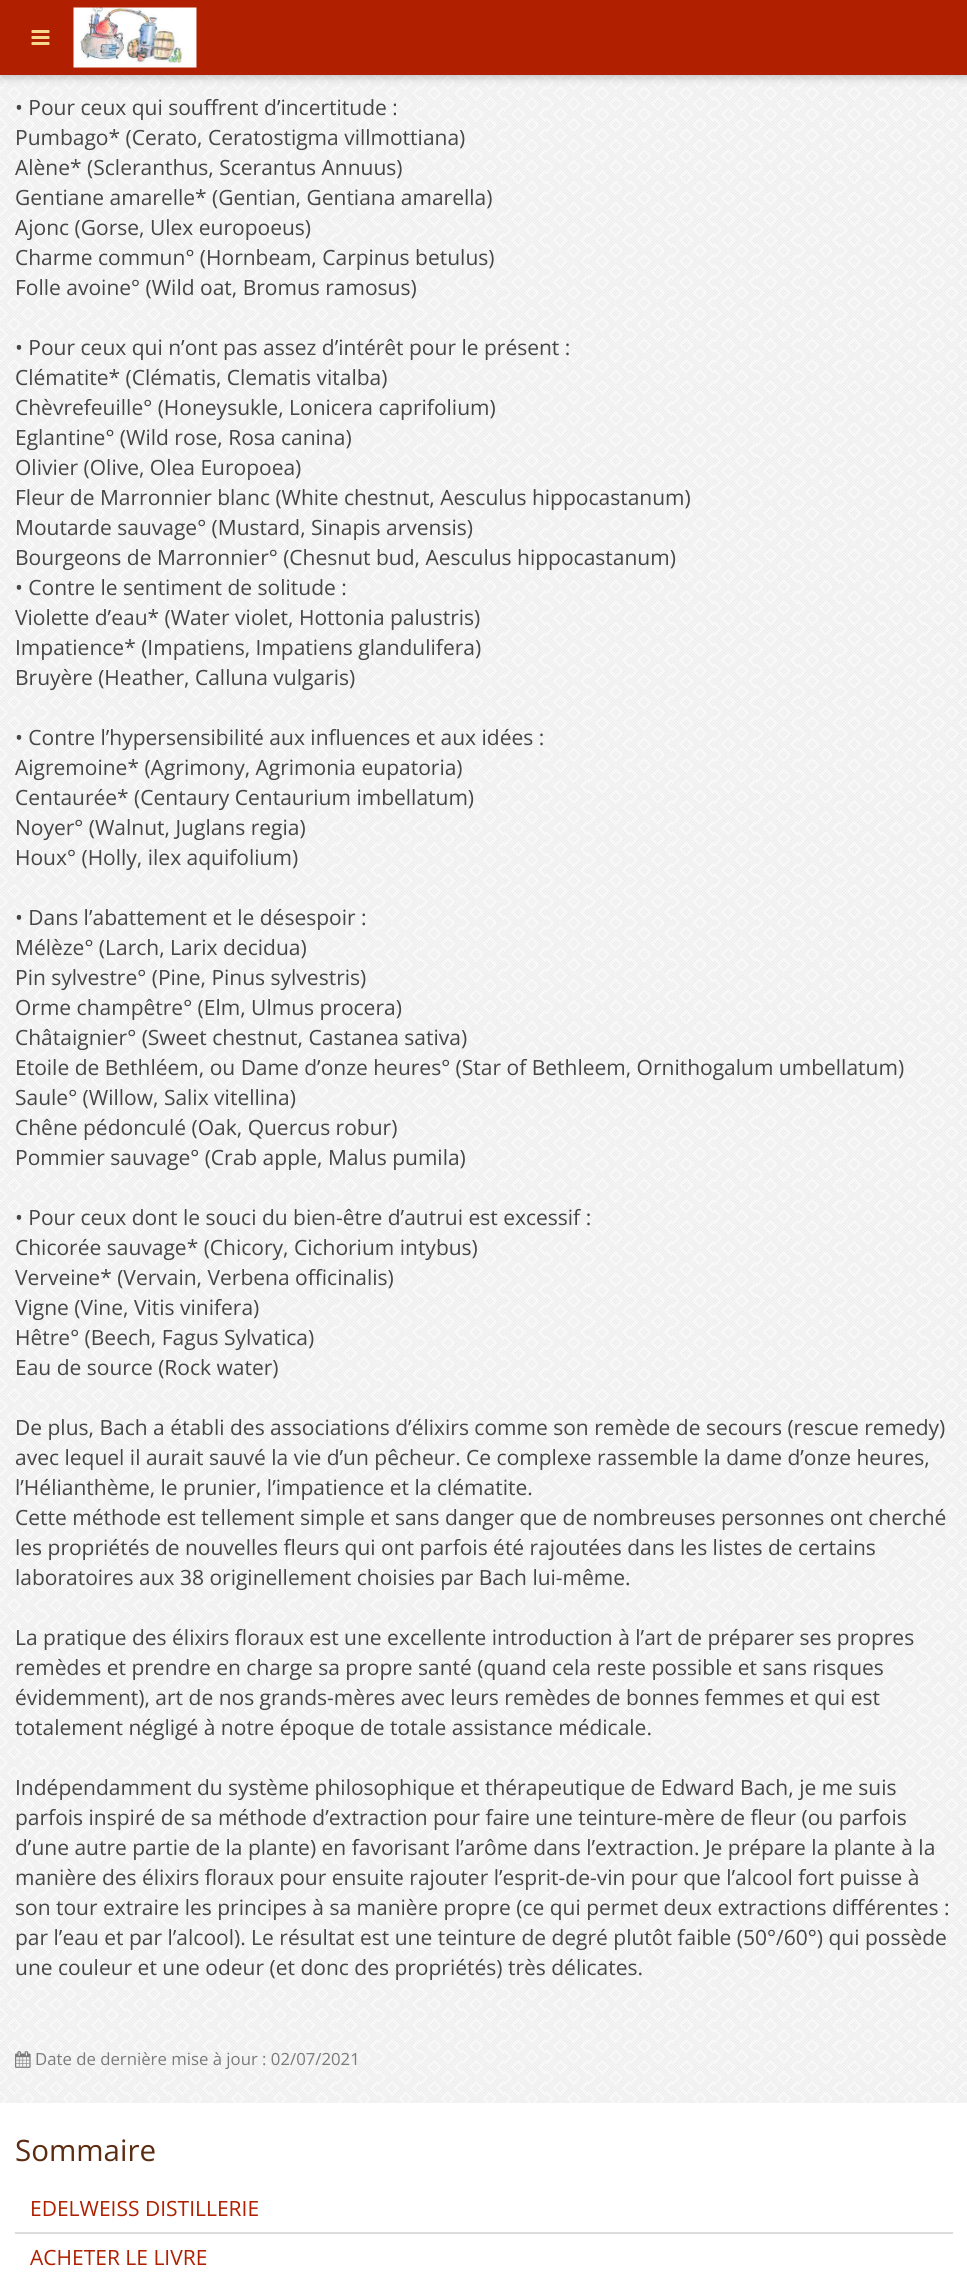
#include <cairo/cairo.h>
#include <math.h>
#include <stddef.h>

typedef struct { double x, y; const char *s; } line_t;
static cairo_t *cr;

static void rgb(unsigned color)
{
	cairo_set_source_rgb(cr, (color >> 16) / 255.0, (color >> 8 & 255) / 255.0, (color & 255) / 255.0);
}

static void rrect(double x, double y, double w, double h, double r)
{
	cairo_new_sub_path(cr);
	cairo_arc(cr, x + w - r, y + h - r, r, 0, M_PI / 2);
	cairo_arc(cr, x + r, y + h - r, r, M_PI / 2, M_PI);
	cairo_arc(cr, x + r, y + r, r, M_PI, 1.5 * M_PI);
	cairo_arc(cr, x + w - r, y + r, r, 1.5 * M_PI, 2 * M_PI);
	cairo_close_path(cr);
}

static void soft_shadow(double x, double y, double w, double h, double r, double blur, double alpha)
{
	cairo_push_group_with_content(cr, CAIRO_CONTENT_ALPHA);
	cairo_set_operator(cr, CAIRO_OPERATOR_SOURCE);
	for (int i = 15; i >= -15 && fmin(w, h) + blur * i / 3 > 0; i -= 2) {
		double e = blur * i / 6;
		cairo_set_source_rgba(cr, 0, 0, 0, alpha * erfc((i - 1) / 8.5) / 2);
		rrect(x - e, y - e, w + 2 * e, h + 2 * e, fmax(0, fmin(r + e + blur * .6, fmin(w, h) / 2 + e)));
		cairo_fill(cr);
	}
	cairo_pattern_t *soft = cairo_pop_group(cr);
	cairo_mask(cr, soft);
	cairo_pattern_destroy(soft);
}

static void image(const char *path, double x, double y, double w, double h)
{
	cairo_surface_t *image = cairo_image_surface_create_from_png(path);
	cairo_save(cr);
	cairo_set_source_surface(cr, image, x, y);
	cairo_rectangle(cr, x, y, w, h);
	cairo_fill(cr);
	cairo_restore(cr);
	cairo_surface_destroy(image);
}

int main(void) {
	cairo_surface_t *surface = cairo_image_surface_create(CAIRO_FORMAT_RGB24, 967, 2276);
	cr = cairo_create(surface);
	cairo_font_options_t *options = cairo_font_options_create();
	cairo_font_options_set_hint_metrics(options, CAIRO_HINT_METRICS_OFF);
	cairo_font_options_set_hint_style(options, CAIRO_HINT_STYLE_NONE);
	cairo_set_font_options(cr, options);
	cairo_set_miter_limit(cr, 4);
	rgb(0xffffff);
	cairo_paint(cr);
	image("img/1.png", 0, 75, 967, 2028);
	rgb(0x000000);
	soft_shadow(0, 3, 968, 75, 0, 4, 0.2);
	rgb(0xb01f00);
	cairo_rectangle(cr, 0, 0, 967, 75);
	cairo_fill(cr);
	image("img/2.png", 31, 30, 19, 15);
	image("img/3.png", 73, 7, 124, 61);
	image("img/4.png", 15, 2051, 16, 17);
	rgb(0xdddddd);
	cairo_rectangle(cr, 15, 2232, 938, 2);
	cairo_fill(cr);
	cairo_select_font_face(cr, "Open Sans", CAIRO_FONT_SLANT_NORMAL, CAIRO_FONT_WEIGHT_NORMAL);
	cairo_set_font_size(cr, 21);
	rgb(0x464646);
	{
		static const line_t items[] = {
			{15, 115, "• Pour ceux qui souffrent d’incertitude :"},
			{15, 145, "Pumbago* (Cerato, Ceratostigma villmottiana)"},
			{15, 175, "Alène* (Scleranthus, Scerantus Annuus)"},
			{15, 205, "Gentiane amarelle* (Gentian, Gentiana amarella)"},
			{15, 235, "Ajonc (Gorse, Ulex europoeus)"},
			{15, 265, "Charme commun° (Hornbeam, Carpinus betulus)"},
			{15, 295, "Folle avoine° (Wild oat, Bromus ramosus)"},
			{15, 355, "• Pour ceux qui n’ont pas assez d’intérêt pour le présent :"},
			{15, 385, "Clématite* (Clématis, Clematis vitalba)"},
			{15, 415, "Chèvrefeuille° (Honeysukle, Lonicera caprifolium)"},
			{15, 445, "Eglantine° (Wild rose, Rosa canina)"},
			{15, 475, "Olivier (Olive, Olea Europoea)"},
			{15, 505, "Fleur de Marronnier blanc (White chestnut, Aesculus hippocastanum)"},
			{15, 535, "Moutarde sauvage° (Mustard, Sinapis arvensis)"},
			{15, 565, "Bourgeons de Marronnier° (Chesnut bud, Aesculus hippocastanum)"},
			{15, 595, "• Contre le sentiment de solitude :"},
			{15, 625, "Violette d’eau* (Water violet, Hottonia palustris)"},
			{15, 655, "Impatience* (Impatiens, Impatiens glandulifera)"},
			{15, 685, "Bruyère (Heather, Calluna vulgaris)"},
			{15, 745, "• Contre l’hypersensibilité aux influences et aux idées :"},
			{15, 775, "Aigremoine* (Agrimony, Agrimonia eupatoria)"},
			{15, 805, "Centaurée* (Centaury Centaurium imbellatum)"},
			{15, 835, "Noyer° (Walnut, Juglans regia)"},
			{15, 865, "Houx° (Holly, ilex aquifolium)"},
			{15, 925, "• Dans l’abattement et le désespoir :"},
			{15, 955, "Mélèze° (Larch, Larix decidua)"},
			{15, 985, "Pin sylvestre° (Pine, Pinus sylvestris)"},
			{15, 1015, "Orme champêtre° (Elm, Ulmus procera)"},
			{15, 1045, "Châtaignier° (Sweet chestnut, Castanea sativa)"},
			{15, 1075, "Etoile de Bethléem, ou Dame d’onze heures° (Star of Bethleem, Ornithogalum umbellatum)"},
			{15, 1105, "Saule° (Willow, Salix vitellina)"},
			{15, 1135, "Chêne pédonculé (Oak, Quercus robur)"},
			{15, 1165, "Pommier sauvage° (Crab apple, Malus pumila)"},
			{15, 1225, "• Pour ceux dont le souci du bien-être d’autrui est excessif :"},
			{15, 1255, "Chicorée sauvage* (Chicory, Cichorium intybus)"},
			{15, 1285, "Verveine* (Vervain, Verbena officinalis)"},
			{15, 1315, "Vigne (Vine, Vitis vinifera)"},
			{15, 1345, "Hêtre° (Beech, Fagus Sylvatica)"},
			{15, 1375, "Eau de source (Rock water)"},
			{15, 1435, "De plus, Bach a établi des associations d’élixirs comme son remède de secours (rescue remedy)"},
			{15, 1465, "avec lequel il aurait sauvé la vie d’un pêcheur. Ce complexe rassemble la dame d’onze heures,"},
			{15, 1495, "l’Hélianthème, le prunier, l’impatience et la clématite."},
			{15, 1525, "Cette méthode est tellement simple et sans danger que de nombreuses personnes ont cherché"},
			{15, 1555, "les propriétés de nouvelles fleurs qui ont parfois été rajoutées dans les listes de certains"},
			{15, 1585, "laboratoires aux 38 originellement choisies par Bach lui-même."},
			{15, 1645, "La pratique des élixirs floraux est une excellente introduction à l’art de préparer ses propres"},
			{15, 1675, "remèdes et prendre en charge sa propre santé (quand cela reste possible et sans risques"},
			{15, 1705, "évidemment), art de nos grands-mères avec leurs remèdes de bonnes femmes et qui est"},
			{15, 1735, "totalement négligé à notre époque de totale assistance médicale."},
			{15, 1795, "Indépendamment du système philosophique et thérapeutique de Edward Bach, je me suis"},
			{15, 1825, "parfois inspiré de sa méthode d’extraction pour faire une teinture-mère de fleur (ou parfois"},
			{15, 1855, "d’une autre partie de la plante) en favorisant l’arôme dans l’extraction. Je prépare la plante à la"},
			{15, 1885, "manière des élixirs floraux pour ensuite rajouter l’esprit-de-vin pour que l’alcool fort puisse à"},
			{15, 1915, "son tour extraire les principes à sa manière propre (ce qui permet deux extractions différentes :"},
			{15, 1945, "par l’eau et par l’alcool). Le résultat est une teinture de degré plutôt faible (50°/60°) qui possède"},
			{15, 1975, "une couleur et une odeur (et donc des propriétés) très délicates."},
		};
		for (size_t i = 0; i < sizeof items / sizeof *items; i++) {
			cairo_move_to(cr, items[i].x, items[i].y);
			cairo_show_text(cr, items[i].s);
		}
	}
	cairo_set_font_size(cr, 16.75);
	rgb(0x7a7a7a);
	cairo_move_to(cr, 35, 2065);
	cairo_show_text(cr, "Date de dernière mise à jour : 02/07/2021");
	cairo_set_font_size(cr, 29.5);
	rgb(0x5b2c10);
	cairo_move_to(cr, 15, 2161);
	cairo_show_text(cr, "Sommaire");
	cairo_set_font_size(cr, 21);
	rgb(0xb01f00);
	cairo_move_to(cr, 30, 2216);
	cairo_show_text(cr, "EDELWEISS DISTILLERIE");
	cairo_move_to(cr, 30, 2265);
	cairo_show_text(cr, "ACHETER LE LIVRE");
	cairo_surface_write_to_png(surface, "page.png");
	cairo_font_options_destroy(options);
	cairo_destroy(cr);
	cairo_surface_destroy(surface);
	return 0;
}
